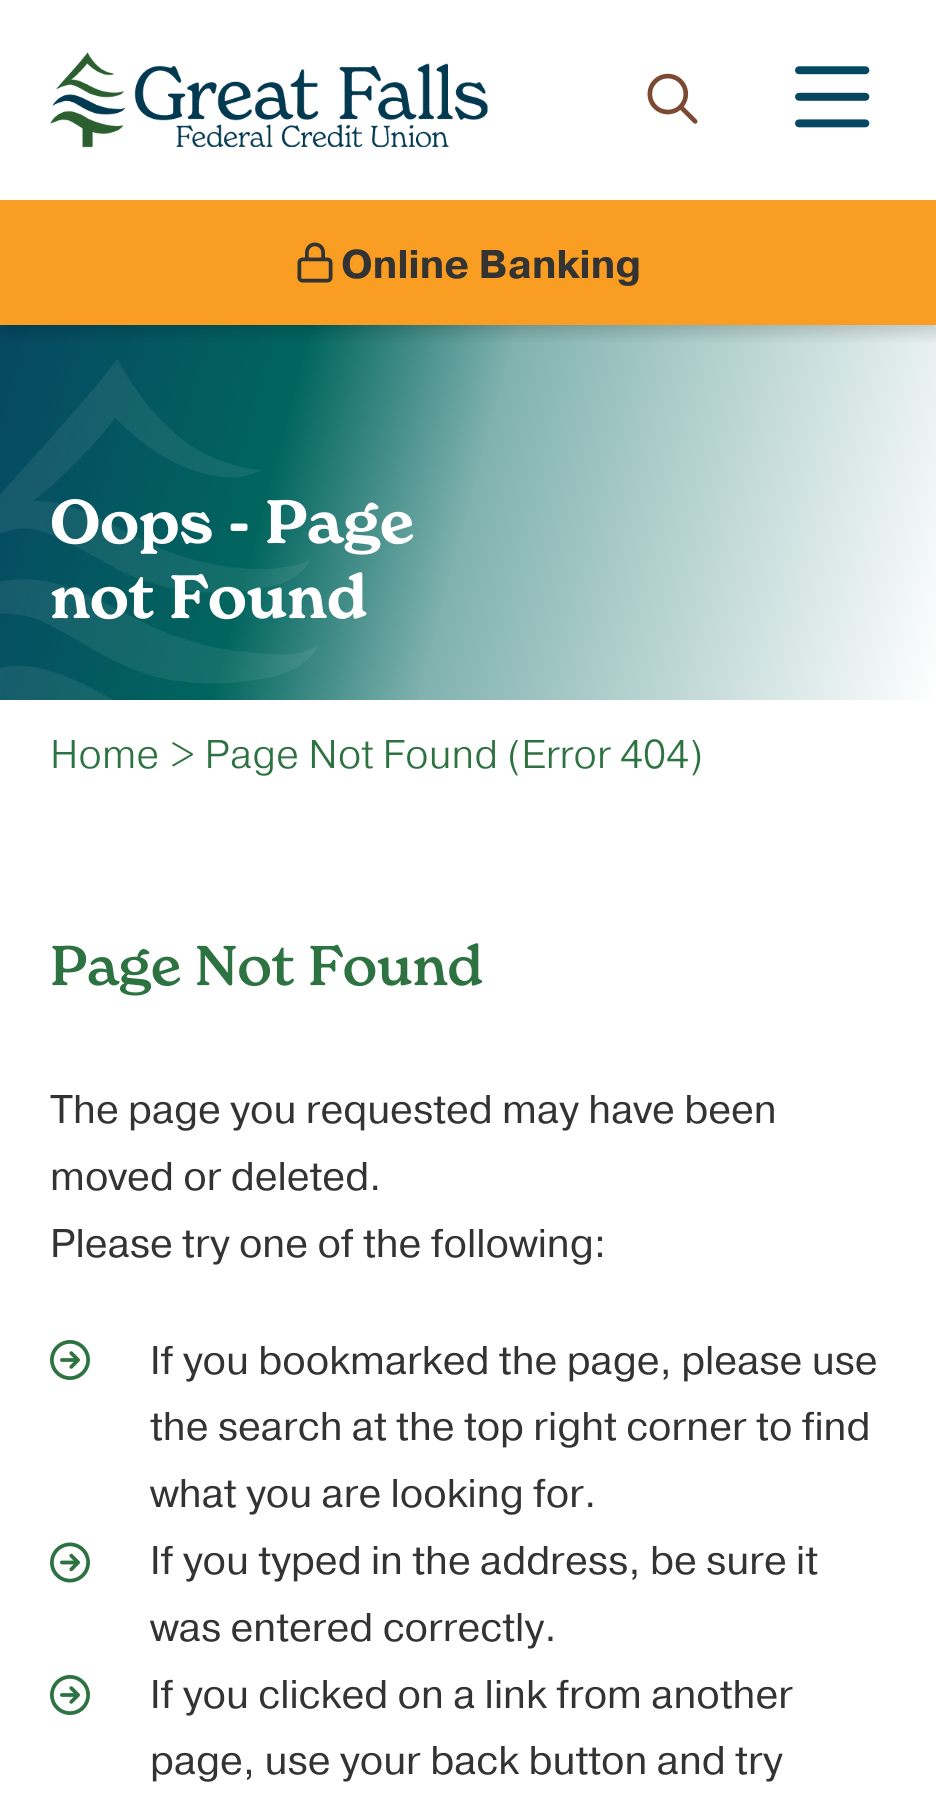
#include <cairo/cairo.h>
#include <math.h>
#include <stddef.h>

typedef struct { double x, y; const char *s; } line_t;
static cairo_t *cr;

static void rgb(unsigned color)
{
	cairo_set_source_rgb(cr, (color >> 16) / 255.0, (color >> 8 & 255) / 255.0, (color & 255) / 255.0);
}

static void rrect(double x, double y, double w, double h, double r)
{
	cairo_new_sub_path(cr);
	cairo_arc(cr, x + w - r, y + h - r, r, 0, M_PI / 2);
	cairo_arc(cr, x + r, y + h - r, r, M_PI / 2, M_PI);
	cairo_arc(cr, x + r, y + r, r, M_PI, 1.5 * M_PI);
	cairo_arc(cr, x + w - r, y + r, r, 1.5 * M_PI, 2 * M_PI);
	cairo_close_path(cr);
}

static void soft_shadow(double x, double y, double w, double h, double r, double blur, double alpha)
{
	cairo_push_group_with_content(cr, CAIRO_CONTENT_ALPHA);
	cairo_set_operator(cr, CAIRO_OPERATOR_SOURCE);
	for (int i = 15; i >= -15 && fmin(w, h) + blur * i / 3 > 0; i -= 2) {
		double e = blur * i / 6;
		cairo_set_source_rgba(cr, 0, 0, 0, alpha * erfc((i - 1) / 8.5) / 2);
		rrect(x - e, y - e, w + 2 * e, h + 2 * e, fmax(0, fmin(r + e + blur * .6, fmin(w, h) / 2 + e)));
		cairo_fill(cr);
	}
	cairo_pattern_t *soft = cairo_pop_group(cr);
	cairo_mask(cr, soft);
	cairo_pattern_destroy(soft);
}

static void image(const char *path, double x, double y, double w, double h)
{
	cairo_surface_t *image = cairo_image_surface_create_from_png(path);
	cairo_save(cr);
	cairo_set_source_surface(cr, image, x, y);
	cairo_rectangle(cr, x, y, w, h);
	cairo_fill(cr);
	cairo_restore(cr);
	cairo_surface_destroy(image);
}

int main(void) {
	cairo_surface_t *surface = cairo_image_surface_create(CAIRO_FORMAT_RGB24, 936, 1805);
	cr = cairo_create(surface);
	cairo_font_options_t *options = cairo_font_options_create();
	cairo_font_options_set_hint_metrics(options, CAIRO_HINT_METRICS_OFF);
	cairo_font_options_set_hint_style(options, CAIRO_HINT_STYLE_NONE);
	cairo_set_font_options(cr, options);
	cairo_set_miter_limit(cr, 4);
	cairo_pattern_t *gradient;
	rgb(0xffffff);
	cairo_paint(cr);
	gradient = cairo_pattern_create_linear(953, 642, -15, 383);
	cairo_pattern_add_color_stop_rgba(gradient, 0, 1, 1, 1, 1);
	cairo_pattern_add_color_stop_rgba(gradient, 0.5, 0.502, 0.698, 0.686, 1);
	cairo_pattern_add_color_stop_rgba(gradient, 0.7, 0.004, 0.396, 0.369, 1);
	cairo_pattern_add_color_stop_rgba(gradient, 1, 0.024, 0.282, 0.384, 1);
	cairo_set_source(cr, gradient);
	cairo_pattern_destroy(gradient);
	cairo_rectangle(cr, 0, 325, 936, 375);
	cairo_fill(cr);
	cairo_save(cr);
	cairo_rectangle(cr, 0, 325, 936, 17);
	cairo_clip(cr);
	rgb(0x000000);
	soft_shadow(0, 8, 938, 325, 0, 7.5, 0.16);
	cairo_restore(cr);
	image("img/1.png", 50, 52, 438, 96);
	image("img/2.png", 647, 73, 51, 51);
	image("img/3.png", 795, 66, 75, 62);
	rgb(0xf99e23);
	cairo_rectangle(cr, 0, 200, 936, 125);
	cairo_fill(cr);
	image("img/4.png", 297, 242, 36, 41);
	image("img/6.png", 50, 1340, 40, 40);
	image("img/7.png", 50, 1542, 40, 41);
	image("img/6.png", 50, 1675, 40, 40);
	cairo_select_font_face(cr, "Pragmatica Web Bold", CAIRO_FONT_SLANT_NORMAL, CAIRO_FONT_WEIGHT_BOLD);
	cairo_set_font_size(cr, 40);
	rgb(0x333333);
	cairo_move_to(cr, 341, 278);
	cairo_show_text(cr, "Online Banking");
	cairo_select_font_face(cr, "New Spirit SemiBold", CAIRO_FONT_SLANT_NORMAL, CAIRO_FONT_WEIGHT_NORMAL);
	cairo_set_font_size(cr, 60);
	rgb(0xffffff);
	cairo_move_to(cr, 50, 543);
	cairo_show_text(cr, "Oops - Page");
	cairo_move_to(cr, 50, 618);
	cairo_show_text(cr, "not Found");
	image("img/5.png", 0, 360, 318, 340);
	cairo_select_font_face(cr, "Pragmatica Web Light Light", CAIRO_FONT_SLANT_NORMAL, CAIRO_FONT_WEIGHT_NORMAL);
	cairo_set_font_size(cr, 40);
	rgb(0x2d7241);
	cairo_move_to(cr, 50, 768);
	cairo_show_text(cr, "Home > Page Not Found (Error 404)");
	cairo_select_font_face(cr, "New Spirit Medium", CAIRO_FONT_SLANT_NORMAL, CAIRO_FONT_WEIGHT_NORMAL);
	cairo_set_font_size(cr, 55);
	cairo_move_to(cr, 50, 985);
	cairo_show_text(cr, "Page Not Found");
	cairo_select_font_face(cr, "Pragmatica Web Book", CAIRO_FONT_SLANT_NORMAL, CAIRO_FONT_WEIGHT_NORMAL);
	cairo_set_font_size(cr, 40);
	rgb(0x333333);
	{
		static const line_t items[] = {
			{50, 1123, "The page you requested may have been"},
			{50, 1190, "moved or deleted."},
			{50, 1257, "Please try one of the following:"},
			{150, 1374, "If you bookmarked the page, please use"},
			{150, 1440, "the search at the top right corner to find"},
			{150, 1507, "what you are looking for."},
			{150, 1574, "If you typed in the address, be sure it"},
			{150, 1641, "was entered correctly."},
			{150, 1708, "If you clicked on a link from another"},
			{150, 1774, "page, use your back button and try"},
		};
		for (size_t i = 0; i < sizeof items / sizeof *items; i++) {
			cairo_move_to(cr, items[i].x, items[i].y);
			cairo_show_text(cr, items[i].s);
		}
	}
	cairo_surface_write_to_png(surface, "page.png");
	cairo_font_options_destroy(options);
	cairo_destroy(cr);
	cairo_surface_destroy(surface);
	return 0;
}
